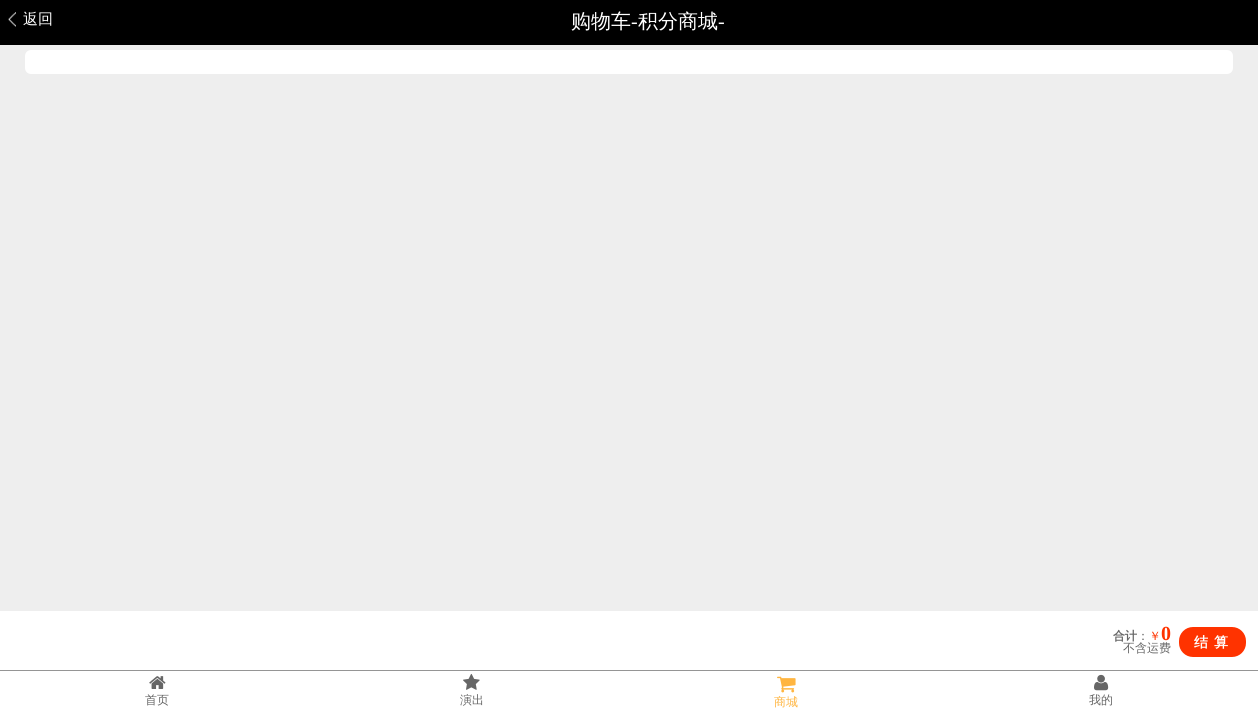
#include <cairo/cairo.h>
#include <math.h>
#include <stddef.h>

static cairo_t *cr;

static void rgb(unsigned color)
{
	cairo_set_source_rgb(cr, (color >> 16) / 255.0, (color >> 8 & 255) / 255.0, (color & 255) / 255.0);
}

static void tracked(double x, double y, const char *s, double letter, double word)
{
	cairo_move_to(cr, x, y);
	while (*s) {
		char ch[5] = {0};
		int n = 0;
		do ch[n++] = *s++; while ((*s & 0xC0) == 0x80);
		cairo_show_text(cr, ch);
		cairo_rel_move_to(cr, letter + word * (*ch == ' '), 0);
	}
}

static void rrect(double x, double y, double w, double h, double r)
{
	cairo_new_sub_path(cr);
	cairo_arc(cr, x + w - r, y + h - r, r, 0, M_PI / 2);
	cairo_arc(cr, x + r, y + h - r, r, M_PI / 2, M_PI);
	cairo_arc(cr, x + r, y + r, r, M_PI, 1.5 * M_PI);
	cairo_arc(cr, x + w - r, y + r, r, 1.5 * M_PI, 2 * M_PI);
	cairo_close_path(cr);
}

static void image(const char *path, double x, double y, double w, double h)
{
	cairo_surface_t *image = cairo_image_surface_create_from_png(path);
	cairo_save(cr);
	cairo_set_source_surface(cr, image, x, y);
	cairo_rectangle(cr, x, y, w, h);
	cairo_fill(cr);
	cairo_restore(cr);
	cairo_surface_destroy(image);
}

int main(void) {
	cairo_surface_t *surface = cairo_image_surface_create(CAIRO_FORMAT_RGB24, 1258, 713);
	cr = cairo_create(surface);
	cairo_font_options_t *options = cairo_font_options_create();
	cairo_font_options_set_hint_metrics(options, CAIRO_HINT_METRICS_OFF);
	cairo_font_options_set_hint_style(options, CAIRO_HINT_STYLE_NONE);
	cairo_set_font_options(cr, options);
	cairo_set_miter_limit(cr, 4);
	rgb(0xeeeeee);
	cairo_paint(cr);
	rgb(0x000000);
	cairo_rectangle(cr, 0, 0, 1258, 45);
	cairo_fill(cr);
	image("img/1.png", 8, 12, 8, 15);
	rgb(0xffffff);
	rrect(25, 50, 1208, 24, 6);
	cairo_fill(cr);
	cairo_rectangle(cr, 0, 611, 1258, 59);
	cairo_fill(cr);
	rgb(0xff3300);
	rrect(1179, 627, 67, 30, 14);
	cairo_fill(cr);
	rgb(0xffffff);
	cairo_rectangle(cr, 0, 671, 1258, 42);
	cairo_fill(cr);
	rgb(0x959595);
	cairo_rectangle(cr, 0, 670, 1258, 1);
	cairo_fill(cr);
	image("img/2.png", 149, 676, 17, 13);
	image("img/3.png", 463, 673, 17, 17);
	image("img/4.png", 777, 676, 19, 17);
	image("img/5.png", 1094, 674, 15, 17);
	cairo_select_font_face(cr, "WenQuanYi Zen Hei Medium", CAIRO_FONT_SLANT_NORMAL, CAIRO_FONT_WEIGHT_NORMAL);
	cairo_set_font_size(cr, 15);
	rgb(0xffffff);
	cairo_move_to(cr, 23, 24);
	cairo_show_text(cr, "返回");
	cairo_set_font_size(cr, 20);
	cairo_move_to(cr, 571, 28);
	cairo_show_text(cr, "购物车");
	cairo_select_font_face(cr, "Liberation Serif", CAIRO_FONT_SLANT_NORMAL, CAIRO_FONT_WEIGHT_NORMAL);
	cairo_move_to(cr, 631, 28);
	cairo_show_text(cr, "-");
	cairo_select_font_face(cr, "WenQuanYi Zen Hei Medium", CAIRO_FONT_SLANT_NORMAL, CAIRO_FONT_WEIGHT_NORMAL);
	cairo_move_to(cr, 638, 28);
	cairo_show_text(cr, "积分商城");
	cairo_select_font_face(cr, "Liberation Serif", CAIRO_FONT_SLANT_NORMAL, CAIRO_FONT_WEIGHT_NORMAL);
	cairo_move_to(cr, 718, 28);
	cairo_show_text(cr, "-");
	cairo_select_font_face(cr, "WenQuanYi Zen Hei", CAIRO_FONT_SLANT_NORMAL, CAIRO_FONT_WEIGHT_BOLD);
	cairo_set_font_size(cr, 12);
	rgb(0x666666);
	cairo_move_to(cr, 1113, 640);
	cairo_show_text(cr, "合计");
	cairo_select_font_face(cr, "WenQuanYi Zen Hei Medium", CAIRO_FONT_SLANT_NORMAL, CAIRO_FONT_WEIGHT_NORMAL);
	cairo_move_to(cr, 1137, 640);
	cairo_show_text(cr, "：");
	rgb(0xff3300);
	cairo_move_to(cr, 1149, 640);
	cairo_show_text(cr, "￥");
	cairo_select_font_face(cr, "Liberation Serif", CAIRO_FONT_SLANT_NORMAL, CAIRO_FONT_WEIGHT_BOLD);
	cairo_set_font_size(cr, 20);
	cairo_move_to(cr, 1161, 640);
	cairo_show_text(cr, "0");
	cairo_select_font_face(cr, "WenQuanYi Zen Hei Medium", CAIRO_FONT_SLANT_NORMAL, CAIRO_FONT_WEIGHT_NORMAL);
	cairo_set_font_size(cr, 12);
	rgb(0x666666);
	cairo_move_to(cr, 1123, 652);
	cairo_show_text(cr, "不含运费");
	cairo_select_font_face(cr, "WenQuanYi Zen Hei", CAIRO_FONT_SLANT_NORMAL, CAIRO_FONT_WEIGHT_BOLD);
	cairo_set_font_size(cr, 14);
	rgb(0xffffff);
	tracked(1194, 647, "结算", 6, 0);
	cairo_select_font_face(cr, "WenQuanYi Zen Hei Medium", CAIRO_FONT_SLANT_NORMAL, CAIRO_FONT_WEIGHT_NORMAL);
	cairo_set_font_size(cr, 12);
	rgb(0x666666);
	cairo_move_to(cr, 145, 704);
	cairo_show_text(cr, "首页");
	cairo_move_to(cr, 460, 704);
	cairo_show_text(cr, "演出");
	rgb(0xffb540);
	cairo_move_to(cr, 774, 706);
	cairo_show_text(cr, "商城");
	rgb(0x666666);
	cairo_move_to(cr, 1089, 704);
	cairo_show_text(cr, "我的");
	cairo_surface_write_to_png(surface, "page.png");
	cairo_font_options_destroy(options);
	cairo_destroy(cr);
	cairo_surface_destroy(surface);
	return 0;
}
